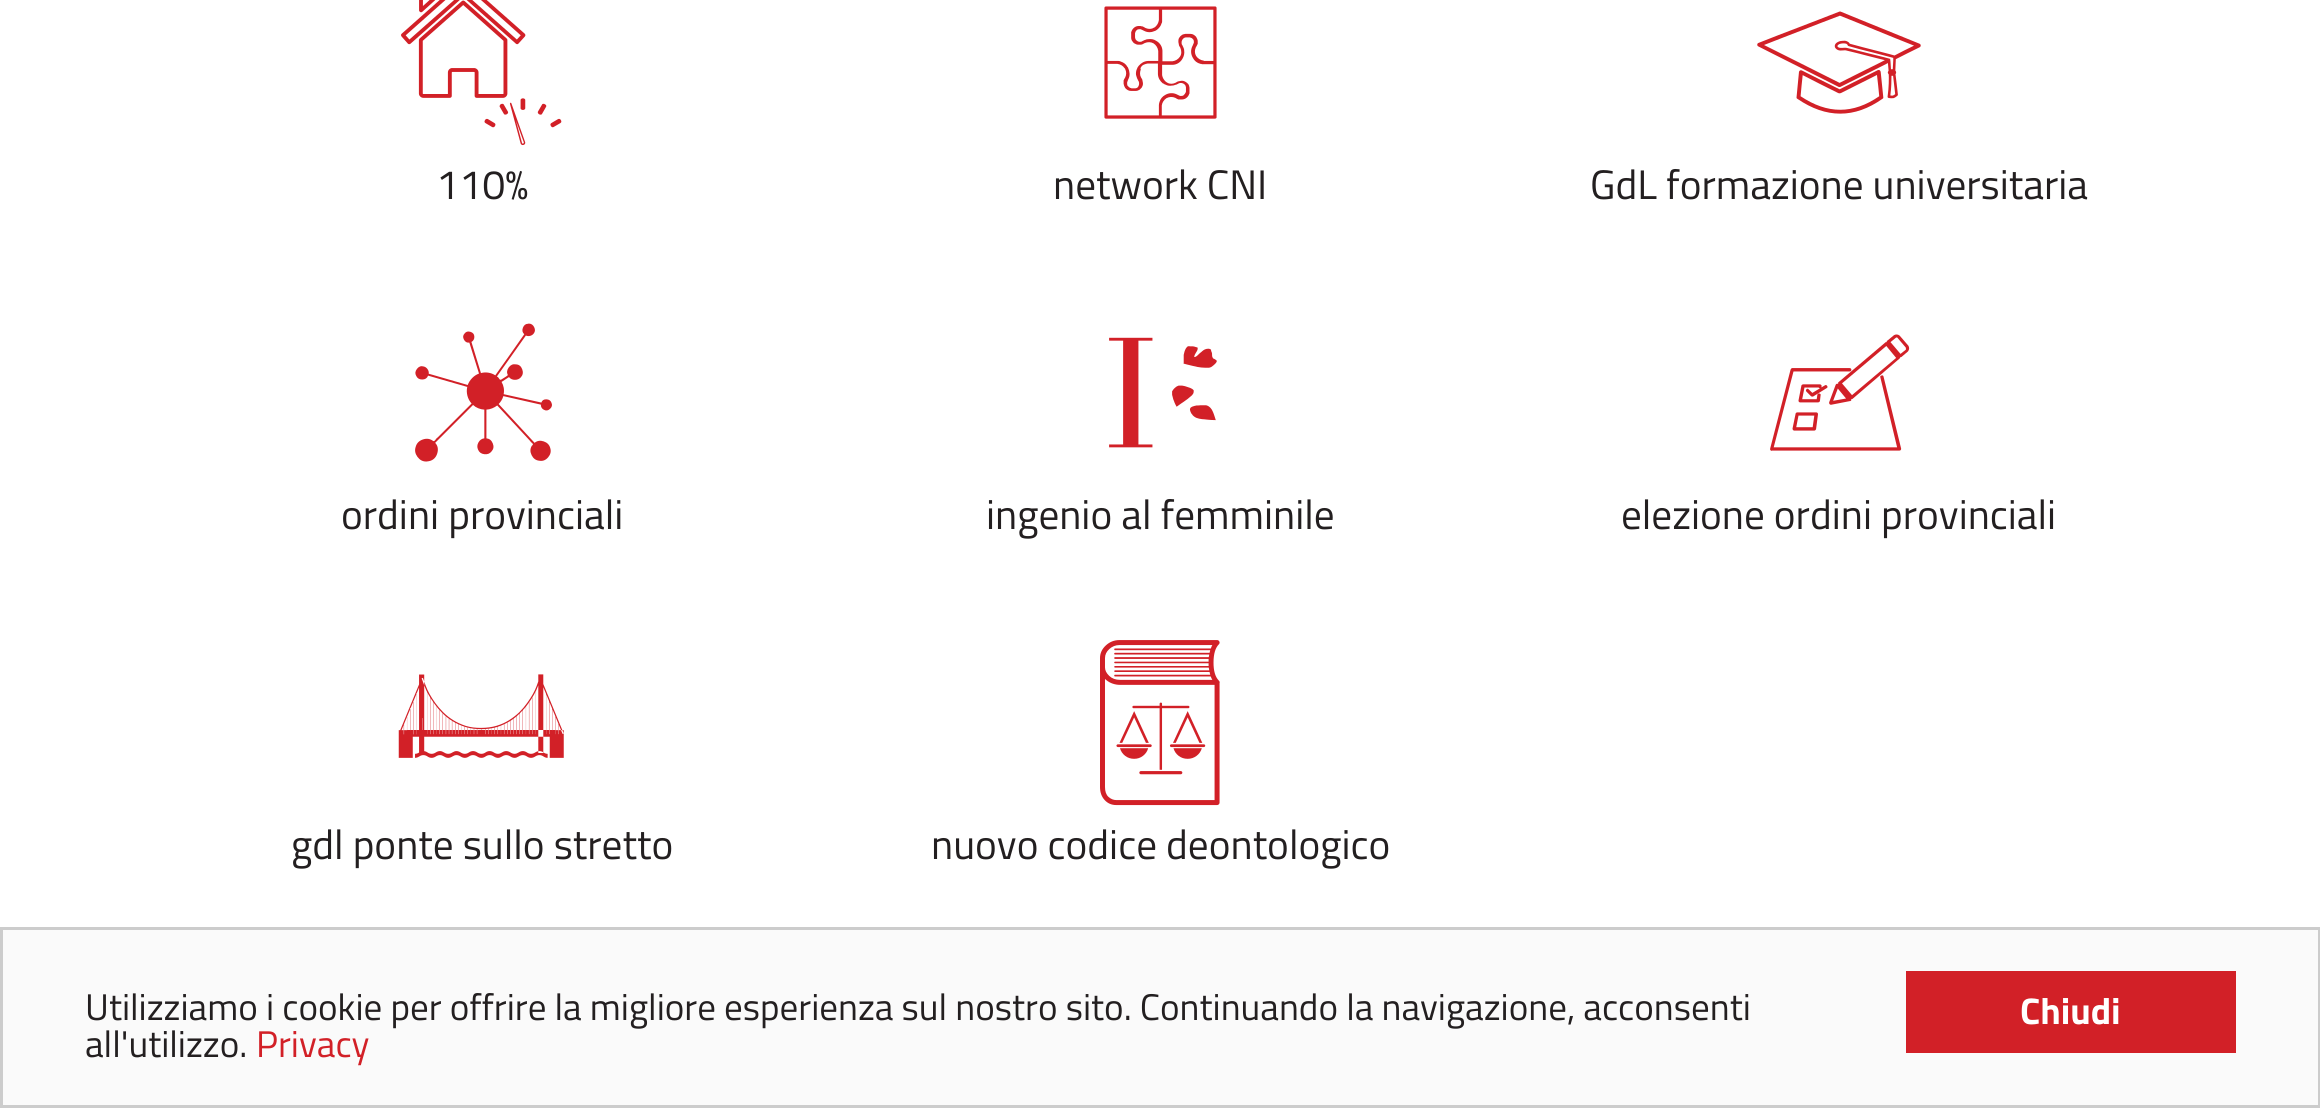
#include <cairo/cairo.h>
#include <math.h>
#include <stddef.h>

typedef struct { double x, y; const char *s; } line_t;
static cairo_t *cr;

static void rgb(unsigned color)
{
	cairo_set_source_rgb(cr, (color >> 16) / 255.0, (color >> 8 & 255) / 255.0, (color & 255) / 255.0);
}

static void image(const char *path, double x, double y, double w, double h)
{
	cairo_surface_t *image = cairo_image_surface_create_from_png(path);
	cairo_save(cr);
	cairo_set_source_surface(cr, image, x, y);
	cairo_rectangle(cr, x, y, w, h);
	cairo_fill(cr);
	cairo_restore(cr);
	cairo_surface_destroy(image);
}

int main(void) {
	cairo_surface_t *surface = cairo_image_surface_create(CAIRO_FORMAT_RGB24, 2320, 1108);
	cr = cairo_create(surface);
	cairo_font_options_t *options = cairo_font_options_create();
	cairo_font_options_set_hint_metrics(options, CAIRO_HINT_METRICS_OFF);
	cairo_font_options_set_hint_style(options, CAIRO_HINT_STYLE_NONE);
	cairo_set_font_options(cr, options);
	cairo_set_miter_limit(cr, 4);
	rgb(0xffffff);
	cairo_paint(cr);
	image("img/1.png", 401, 0, 161, 146);
	image("img/2.png", 1104, 6, 113, 113);
	image("img/3.png", 1757, 11, 164, 103);
	image("img/4.png", 415, 323, 137, 139);
	image("img/5.png", 1109, 337, 108, 111);
	image("img/6.png", 1770, 334, 140, 117);
	image("img/7.png", 398, 674, 166, 84);
	image("img/8.png", 1100, 640, 120, 166);
	rgb(0xfafafa);
	cairo_rectangle(cr, 1.5, 928.5, 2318, 178);
	cairo_fill_preserve(cr);
	rgb(0xcccccc);
	cairo_set_line_width(cr, 3);
	cairo_stroke(cr);
	rgb(0xd22027);
	cairo_rectangle(cr, 1906, 971, 330, 82);
	cairo_fill(cr);
	cairo_select_font_face(cr, "Titillium Web", CAIRO_FONT_SLANT_NORMAL, CAIRO_FONT_WEIGHT_NORMAL);
	cairo_set_font_size(cr, 41.25);
	rgb(0x231f20);
	{
		static const line_t items[] = {
			{436, 199, "110%"},
			{1053, 199, "network CNI"},
			{1590, 199, "GdL formazione universitaria"},
			{341, 529, "ordini provinciali"},
			{986, 529, "ingenio al femminile"},
			{1621, 529, "elezione ordini provinciali"},
			{291, 859, "gdl ponte sullo stretto"},
			{931, 859, "nuovo codice deontologico"},
		};
		for (size_t i = 0; i < sizeof items / sizeof *items; i++) {
			cairo_move_to(cr, items[i].x, items[i].y);
			cairo_show_text(cr, items[i].s);
		}
	}
	cairo_set_font_size(cr, 37.1);
	cairo_move_to(cr, 85, 1020);
	cairo_show_text(cr, "Utilizziamo i cookie per offrire la migliore esperienza sul nostro sito. Continuando la navigazione, acconsenti");
	cairo_move_to(cr, 85, 1057);
	cairo_show_text(cr, "all'utilizzo.");
	rgb(0xd22027);
	cairo_move_to(cr, 256, 1057);
	cairo_show_text(cr, "Privacy");
	cairo_select_font_face(cr, "Titillium Web", CAIRO_FONT_SLANT_NORMAL, CAIRO_FONT_WEIGHT_BOLD);
	rgb(0xffffff);
	cairo_move_to(cr, 2020, 1024);
	cairo_show_text(cr, "Chiudi");
	cairo_surface_write_to_png(surface, "page.png");
	cairo_font_options_destroy(options);
	cairo_destroy(cr);
	cairo_surface_destroy(surface);
	return 0;
}
